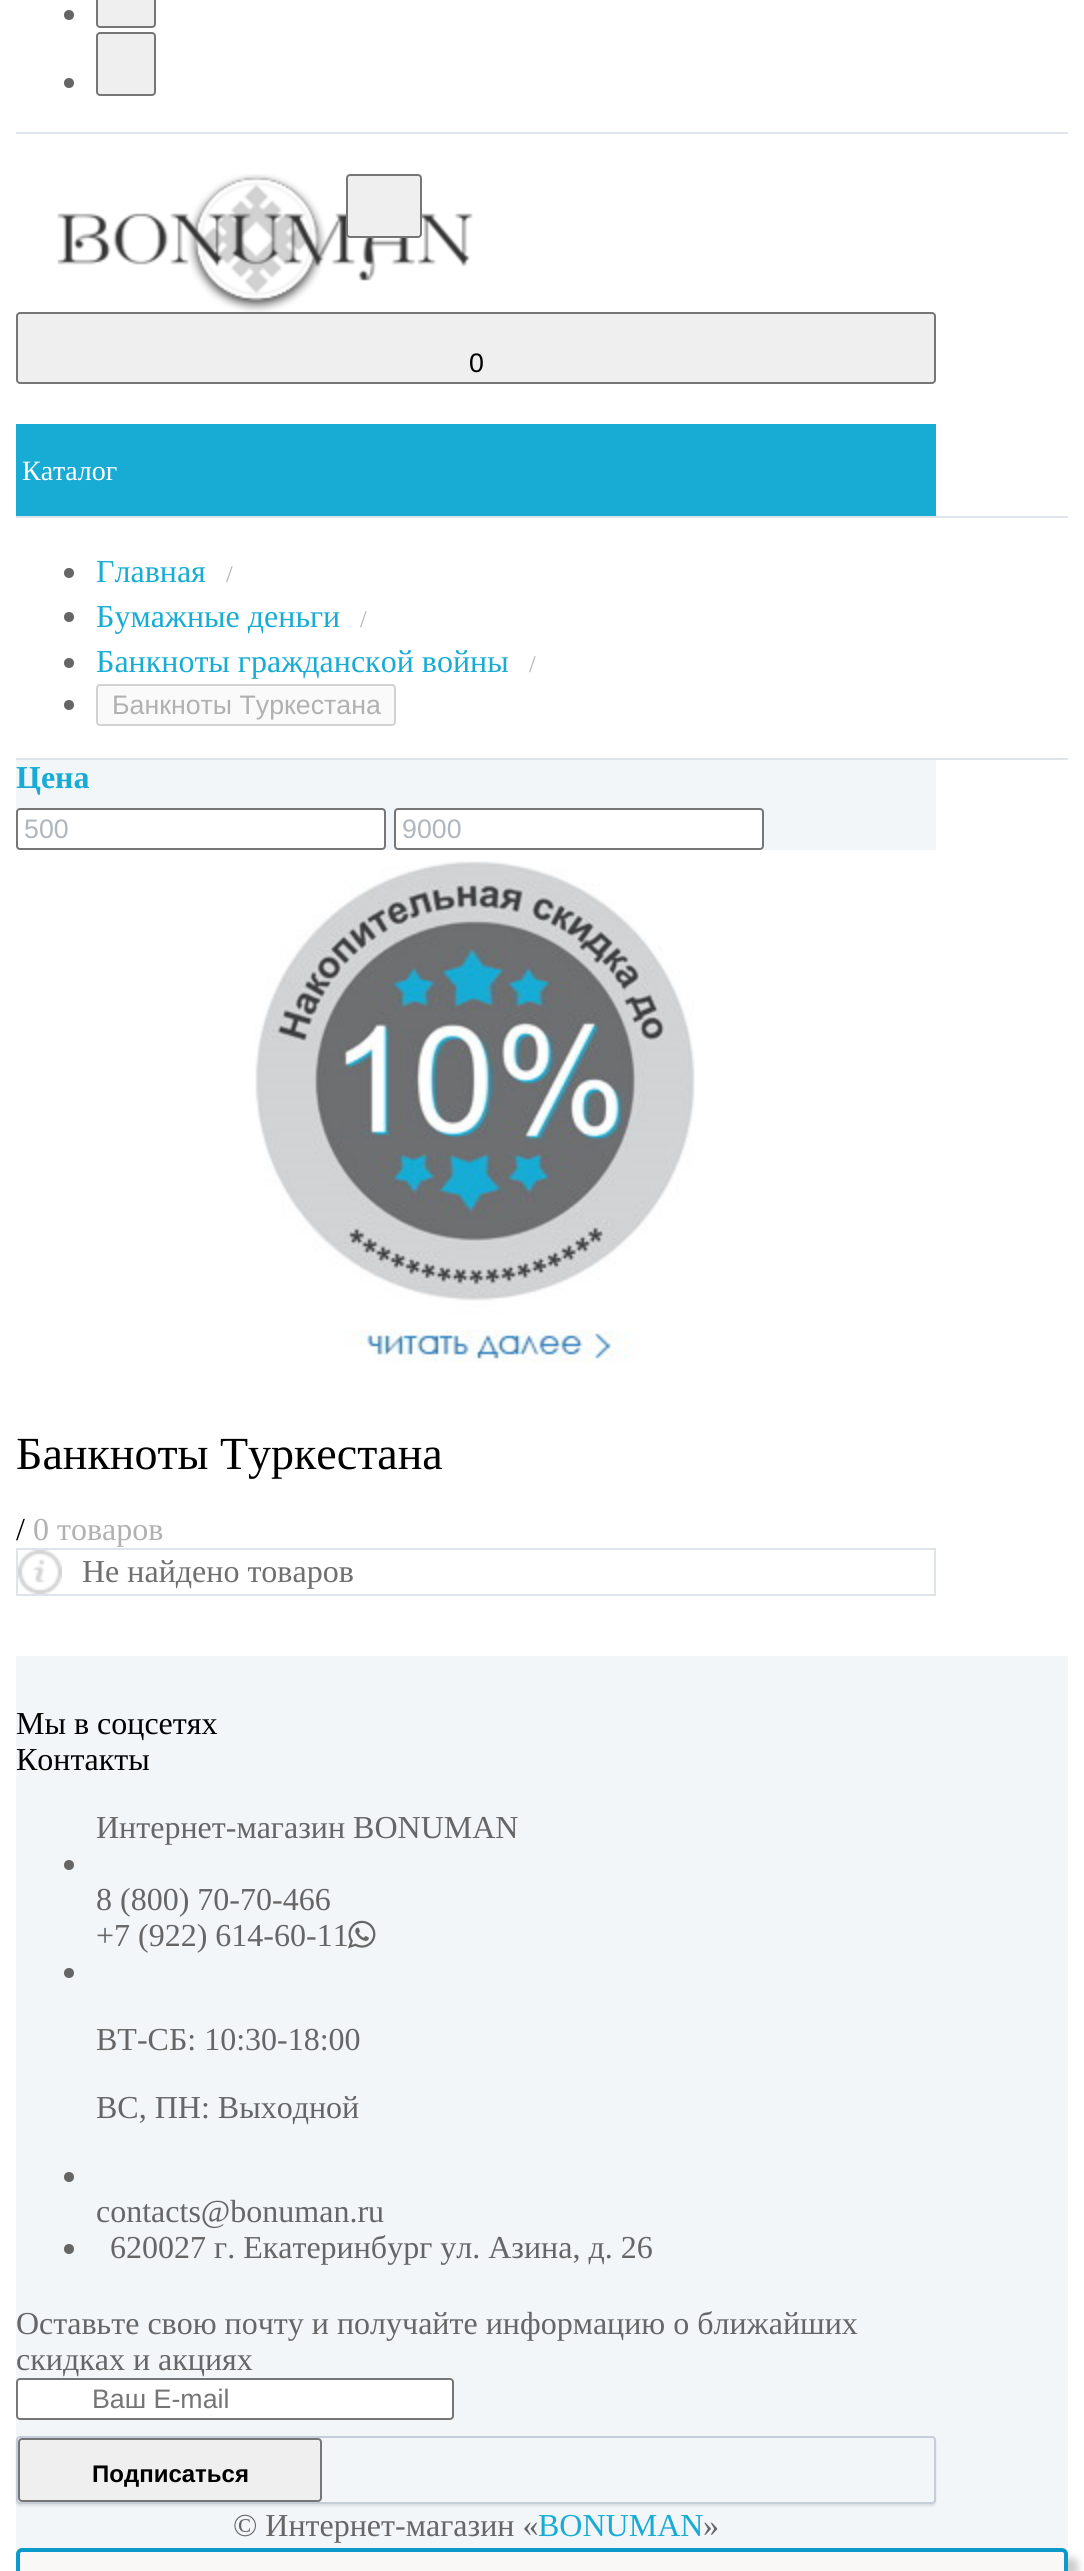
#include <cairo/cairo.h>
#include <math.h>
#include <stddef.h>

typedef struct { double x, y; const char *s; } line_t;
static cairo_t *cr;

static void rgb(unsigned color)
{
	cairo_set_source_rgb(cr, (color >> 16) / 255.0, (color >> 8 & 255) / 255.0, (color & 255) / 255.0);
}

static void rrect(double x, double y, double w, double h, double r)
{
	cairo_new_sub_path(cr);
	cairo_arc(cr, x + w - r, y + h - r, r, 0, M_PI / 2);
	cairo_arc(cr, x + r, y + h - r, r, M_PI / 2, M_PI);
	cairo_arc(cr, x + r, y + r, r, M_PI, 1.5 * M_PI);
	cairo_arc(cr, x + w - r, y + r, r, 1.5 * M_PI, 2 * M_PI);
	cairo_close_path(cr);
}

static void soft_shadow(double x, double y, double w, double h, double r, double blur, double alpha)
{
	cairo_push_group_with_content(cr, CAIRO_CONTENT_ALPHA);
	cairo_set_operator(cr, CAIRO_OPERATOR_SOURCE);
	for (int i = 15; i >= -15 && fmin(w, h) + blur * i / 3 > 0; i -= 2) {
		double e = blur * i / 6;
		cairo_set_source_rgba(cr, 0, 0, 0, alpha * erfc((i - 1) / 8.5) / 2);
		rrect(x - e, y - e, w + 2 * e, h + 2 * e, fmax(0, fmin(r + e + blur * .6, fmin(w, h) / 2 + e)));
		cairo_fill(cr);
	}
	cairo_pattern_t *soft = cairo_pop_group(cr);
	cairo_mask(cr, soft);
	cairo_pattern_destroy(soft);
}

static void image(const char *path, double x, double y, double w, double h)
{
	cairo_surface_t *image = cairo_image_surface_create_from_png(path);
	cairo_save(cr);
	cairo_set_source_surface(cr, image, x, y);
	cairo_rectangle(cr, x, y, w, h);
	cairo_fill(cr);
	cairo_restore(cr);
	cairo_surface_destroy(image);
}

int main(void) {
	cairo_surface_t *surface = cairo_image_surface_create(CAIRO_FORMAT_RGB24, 1084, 2571);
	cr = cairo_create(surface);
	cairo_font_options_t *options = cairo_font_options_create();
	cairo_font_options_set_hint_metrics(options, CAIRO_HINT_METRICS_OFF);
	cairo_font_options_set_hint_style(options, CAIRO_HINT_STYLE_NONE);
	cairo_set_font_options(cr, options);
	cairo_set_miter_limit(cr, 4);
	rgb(0xffffff);
	cairo_paint(cr);
	rgb(0xdfe4eb);
	cairo_rectangle(cr, 16, 516, 1052, 2);
	cairo_fill(cr);
	cairo_rectangle(cr, 16, 132, 1052, 2);
	cairo_fill(cr);
	rgb(0x666666);
	cairo_arc(cr, 69, 15, 5, 0, 2 * M_PI);
	cairo_fill(cr);
	rgb(0xefefef);
	rrect(97, -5, 58, 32, 3);
	cairo_fill_preserve(cr);
	rgb(0x767676);
	cairo_stroke(cr);
	rgb(0x666666);
	cairo_arc(cr, 69, 83, 5, 0, 2 * M_PI);
	cairo_fill(cr);
	rgb(0xefefef);
	rrect(97, 33, 58, 62, 3);
	cairo_fill_preserve(cr);
	rgb(0x767676);
	cairo_stroke(cr);
	image("img/1.png", 57, 174, 416, 138);
	rgb(0xefefef);
	rrect(347, 175, 74, 62, 3);
	cairo_fill_preserve(cr);
	rgb(0x767676);
	cairo_stroke(cr);
	rgb(0xefefef);
	rrect(17, 313, 918, 70, 3);
	cairo_fill_preserve(cr);
	rgb(0x767676);
	cairo_stroke(cr);
	rgb(0x18acd5);
	cairo_rectangle(cr, 16, 424, 920, 92);
	cairo_fill(cr);
	rgb(0xdfe4eb);
	cairo_rectangle(cr, 16, 758, 1052, 2);
	cairo_fill(cr);
	rgb(0x666666);
	cairo_arc(cr, 69, 573, 5, 0, 2 * M_PI);
	cairo_fill(cr);
	cairo_arc(cr, 69, 617, 5, 0, 2 * M_PI);
	cairo_fill(cr);
	cairo_arc(cr, 69, 663, 5, 0, 2 * M_PI);
	cairo_fill(cr);
	cairo_arc(cr, 69, 705, 5, 0, 2 * M_PI);
	cairo_fill(cr);
	rgb(0xfafafa);
	rrect(97, 685, 298, 40, 3);
	cairo_fill_preserve(cr);
	rgb(0xd2d2d2);
	cairo_stroke(cr);
	rgb(0xf2f6f9);
	cairo_rectangle(cr, 16, 760, 920, 90);
	cairo_fill(cr);
	rgb(0xffffff);
	rrect(17, 809, 368, 40, 3);
	cairo_fill_preserve(cr);
	rgb(0x767676);
	cairo_stroke(cr);
	rgb(0xffffff);
	rrect(395, 809, 368, 40, 3);
	cairo_fill_preserve(cr);
	rgb(0x767676);
	cairo_stroke(cr);
	image("img/2.png", 255, 861, 440, 502);
	cairo_rectangle(cr, 17, 1549, 918, 46);
	rgb(0xdfe4eb);
	cairo_stroke(cr);
	image("img/3.png", 18, 1550, 44, 44);
	rgb(0xf2f6f9);
	cairo_rectangle(cr, 16, 1656, 1052, 892);
	cairo_fill(cr);
	rgb(0x666666);
	cairo_arc(cr, 69, 1865, 5, 0, 2 * M_PI);
	cairo_fill(cr);
	image("img/4.png", 348, 1920, 28, 29);
	cairo_arc(cr, 69, 1973, 5, 0, 2 * M_PI);
	cairo_fill(cr);
	cairo_arc(cr, 69, 2177, 5, 0, 2 * M_PI);
	cairo_fill(cr);
	cairo_arc(cr, 69, 2249, 5, 0, 2 * M_PI);
	cairo_fill(cr);
	rgb(0xffffff);
	rrect(17, 2379, 436, 40, 3);
	cairo_fill_preserve(cr);
	rgb(0x767676);
	cairo_stroke(cr);
	rgb(0x000000);
	soft_shadow(16, 2438, 920, 68, 4, 1, 0.1);
	rgb(0xf2f6f9);
	rrect(17, 2437, 918, 66, 3);
	cairo_fill_preserve(cr);
	rgb(0xc5cdd8);
	cairo_stroke(cr);
	rgb(0xefefef);
	rrect(19, 2439, 302, 62, 3);
	cairo_fill_preserve(cr);
	rgb(0x767676);
	cairo_stroke(cr);
	rgb(0x000000);
	soft_shadow(26, 2558, 1052, 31, 6, 4, 0.2);
	rgb(0xfaf8f6);
	rrect(18, 2550, 1048, 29, 4);
	cairo_fill_preserve(cr);
	rgb(0x0c9acb);
	cairo_set_line_width(cr, 4);
	cairo_stroke(cr);
	cairo_select_font_face(cr, "Liberation Sans", CAIRO_FONT_SLANT_NORMAL, CAIRO_FONT_WEIGHT_NORMAL);
	cairo_set_font_size(cr, 26.75);
	rgb(0x000000);
	cairo_move_to(cr, 469, 372);
	cairo_show_text(cr, "0");
	cairo_select_font_face(cr, "Liberation Serif", CAIRO_FONT_SLANT_NORMAL, CAIRO_FONT_WEIGHT_NORMAL);
	cairo_set_font_size(cr, 28);
	rgb(0xffffff);
	cairo_move_to(cr, 22, 480);
	cairo_show_text(cr, "Каталог");
	cairo_set_font_size(cr, 32);
	rgb(0x18acd5);
	cairo_move_to(cr, 96, 582);
	cairo_show_text(cr, "Главная");
	cairo_set_font_size(cr, 24);
	rgb(0xb1b1b1);
	cairo_move_to(cr, 226, 582);
	cairo_show_text(cr, "/");
	cairo_set_font_size(cr, 32);
	rgb(0x18acd5);
	cairo_move_to(cr, 96, 627);
	cairo_show_text(cr, "Бумажные деньги");
	cairo_set_font_size(cr, 24);
	rgb(0xb1b1b1);
	cairo_move_to(cr, 360, 627);
	cairo_show_text(cr, "/");
	cairo_set_font_size(cr, 32);
	rgb(0x18acd5);
	cairo_move_to(cr, 96, 672);
	cairo_show_text(cr, "Банкноты гражданской войны");
	cairo_set_font_size(cr, 24);
	rgb(0xb1b1b1);
	cairo_move_to(cr, 529, 672);
	cairo_show_text(cr, "/");
	cairo_select_font_face(cr, "Liberation Sans", CAIRO_FONT_SLANT_NORMAL, CAIRO_FONT_WEIGHT_NORMAL);
	cairo_set_font_size(cr, 26.75);
	cairo_move_to(cr, 112, 714);
	cairo_show_text(cr, "Банкноты Туркестана");
	cairo_select_font_face(cr, "Liberation Serif", CAIRO_FONT_SLANT_NORMAL, CAIRO_FONT_WEIGHT_BOLD);
	cairo_set_font_size(cr, 32);
	rgb(0x18acd5);
	cairo_move_to(cr, 16, 788);
	cairo_show_text(cr, "Цена");
	cairo_select_font_face(cr, "Liberation Sans", CAIRO_FONT_SLANT_NORMAL, CAIRO_FONT_WEIGHT_NORMAL);
	cairo_set_font_size(cr, 26.75);
	rgb(0xafb6bd);
	cairo_move_to(cr, 24, 838);
	cairo_show_text(cr, "500");
	cairo_move_to(cr, 402, 838);
	cairo_show_text(cr, "9000");
	cairo_select_font_face(cr, "Liberation Serif", CAIRO_FONT_SLANT_NORMAL, CAIRO_FONT_WEIGHT_NORMAL);
	cairo_set_font_size(cr, 46);
	rgb(0x000000);
	cairo_move_to(cr, 16, 1469);
	cairo_show_text(cr, "Банкноты Туркестана");
	cairo_set_font_size(cr, 32);
	cairo_move_to(cr, 16, 1540);
	cairo_show_text(cr, "/");
	rgb(0xb1b1b1);
	cairo_move_to(cr, 33, 1540);
	cairo_show_text(cr, "0 товаров");
	rgb(0x6f6f6f);
	cairo_move_to(cr, 82, 1582);
	cairo_show_text(cr, "Не найдено товаров");
	rgb(0x000000);
	cairo_move_to(cr, 16, 1734);
	cairo_show_text(cr, "Мы в соцсетях");
	cairo_move_to(cr, 16, 1770);
	cairo_show_text(cr, "Контакты");
	rgb(0x666666);
	{
		static const line_t items[] = {
			{96, 1838, "Интернет-магазин BONUMAN"},
			{96, 1910, "8 (800) 70-70-466"},
			{96, 1946, "+7 (922) 614-60-11"},
			{96, 2050, "ВТ-СБ: 10:30-18:00"},
			{96, 2118, "ВС, ПН: Выходной"},
			{96, 2222, "contacts@bonuman.ru"},
			{110, 2258, "620027 г. Екатеринбург ул. Азина, д. 26"},
			{16, 2334, "Оставьте свою почту и получайте информацию о ближайших"},
			{16, 2370, "скидках и акциях"},
		};
		for (size_t i = 0; i < sizeof items / sizeof *items; i++) {
			cairo_move_to(cr, items[i].x, items[i].y);
			cairo_show_text(cr, items[i].s);
		}
	}
	cairo_select_font_face(cr, "Liberation Sans", CAIRO_FONT_SLANT_NORMAL, CAIRO_FONT_WEIGHT_NORMAL);
	cairo_set_font_size(cr, 26.75);
	rgb(0x757575);
	cairo_move_to(cr, 92, 2408);
	cairo_show_text(cr, "Ваш E-mail");
	cairo_select_font_face(cr, "Liberation Sans", CAIRO_FONT_SLANT_NORMAL, CAIRO_FONT_WEIGHT_BOLD);
	cairo_set_font_size(cr, 24);
	rgb(0x000000);
	cairo_move_to(cr, 92, 2482);
	cairo_show_text(cr, "Подписаться");
	cairo_select_font_face(cr, "Liberation Serif", CAIRO_FONT_SLANT_NORMAL, CAIRO_FONT_WEIGHT_NORMAL);
	cairo_set_font_size(cr, 32);
	rgb(0x666666);
	cairo_move_to(cr, 233, 2536);
	cairo_show_text(cr, "© Интернет-магазин «");
	rgb(0x18acd5);
	cairo_move_to(cr, 538, 2536);
	cairo_show_text(cr, "BONUMAN");
	rgb(0x666666);
	cairo_move_to(cr, 703, 2536);
	cairo_show_text(cr, "»");
	cairo_surface_write_to_png(surface, "page.png");
	cairo_font_options_destroy(options);
	cairo_destroy(cr);
	cairo_surface_destroy(surface);
	return 0;
}
